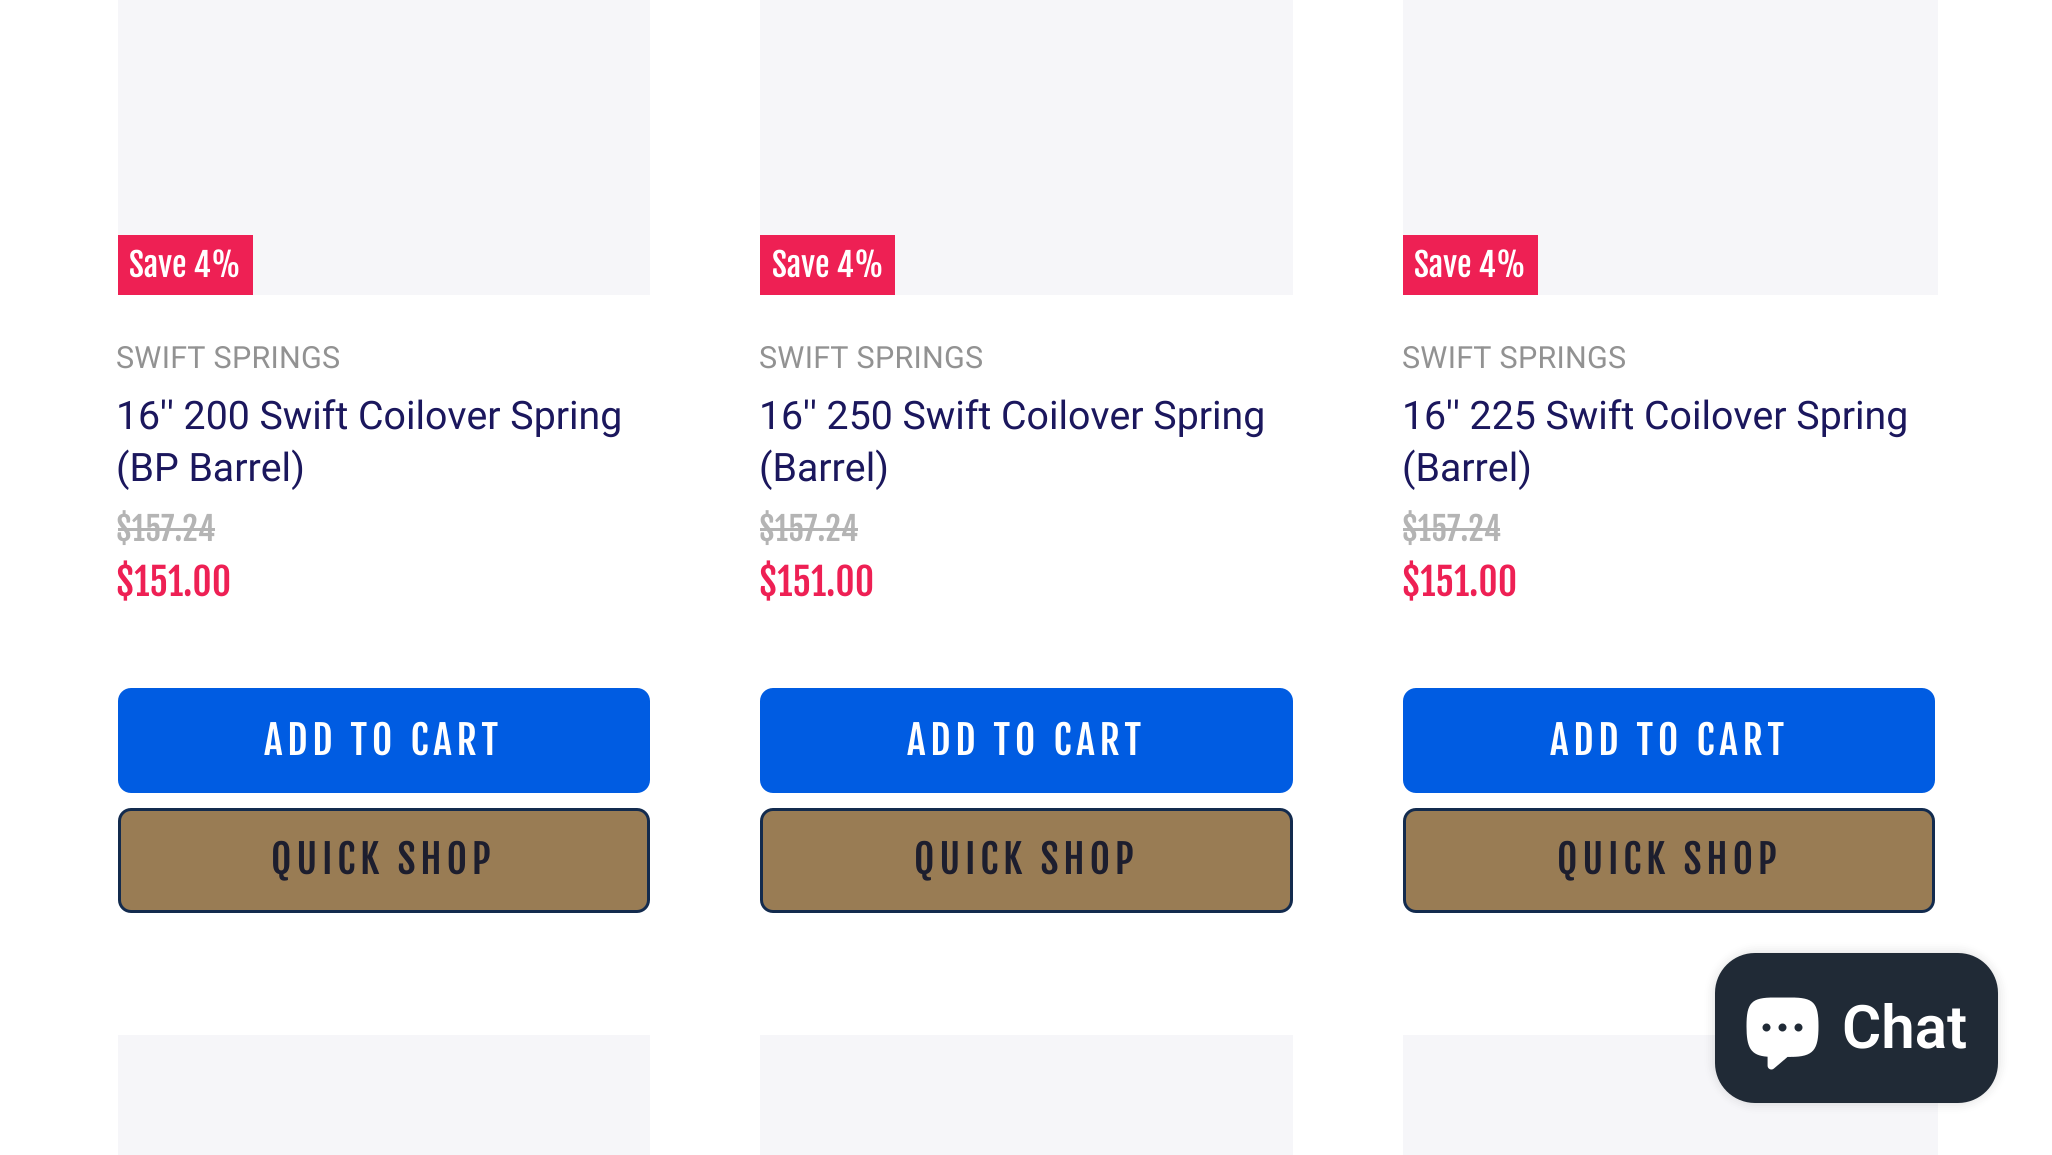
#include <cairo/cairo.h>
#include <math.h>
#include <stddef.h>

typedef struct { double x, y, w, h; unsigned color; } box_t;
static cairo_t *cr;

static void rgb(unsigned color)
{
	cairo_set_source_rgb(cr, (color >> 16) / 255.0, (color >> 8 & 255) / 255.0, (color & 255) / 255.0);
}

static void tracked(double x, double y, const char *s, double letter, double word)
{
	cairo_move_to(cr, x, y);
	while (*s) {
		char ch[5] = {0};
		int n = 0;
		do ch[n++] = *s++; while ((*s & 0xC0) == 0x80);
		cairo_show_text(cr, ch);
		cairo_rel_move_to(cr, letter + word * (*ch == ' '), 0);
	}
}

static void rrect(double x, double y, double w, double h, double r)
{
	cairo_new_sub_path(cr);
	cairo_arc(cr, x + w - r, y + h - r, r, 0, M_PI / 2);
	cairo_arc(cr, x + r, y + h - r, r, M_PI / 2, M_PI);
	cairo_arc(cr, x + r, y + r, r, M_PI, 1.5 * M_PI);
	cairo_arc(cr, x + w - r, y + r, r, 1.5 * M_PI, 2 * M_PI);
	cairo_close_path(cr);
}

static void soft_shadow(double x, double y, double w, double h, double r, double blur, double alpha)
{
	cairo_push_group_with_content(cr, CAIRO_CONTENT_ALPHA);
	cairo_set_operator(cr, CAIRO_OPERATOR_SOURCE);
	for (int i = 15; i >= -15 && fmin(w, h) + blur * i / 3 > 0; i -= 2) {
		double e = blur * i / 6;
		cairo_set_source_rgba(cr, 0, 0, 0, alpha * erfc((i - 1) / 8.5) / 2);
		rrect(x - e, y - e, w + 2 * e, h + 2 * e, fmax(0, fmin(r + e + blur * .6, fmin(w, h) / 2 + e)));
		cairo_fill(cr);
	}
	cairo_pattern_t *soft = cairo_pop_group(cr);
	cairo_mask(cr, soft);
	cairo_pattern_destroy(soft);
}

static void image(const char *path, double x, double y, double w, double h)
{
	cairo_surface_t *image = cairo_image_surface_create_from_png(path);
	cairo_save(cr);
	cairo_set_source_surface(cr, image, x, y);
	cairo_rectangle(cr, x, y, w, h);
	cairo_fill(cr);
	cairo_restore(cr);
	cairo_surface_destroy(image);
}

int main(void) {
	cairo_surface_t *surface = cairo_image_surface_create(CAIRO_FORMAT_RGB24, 2052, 1155);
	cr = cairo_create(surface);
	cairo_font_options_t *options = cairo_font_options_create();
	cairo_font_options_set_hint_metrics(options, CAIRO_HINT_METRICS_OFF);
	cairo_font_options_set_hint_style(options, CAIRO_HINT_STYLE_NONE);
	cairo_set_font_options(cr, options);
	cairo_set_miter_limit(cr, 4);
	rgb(0xffffff);
	cairo_paint(cr);
	{
		static const box_t items[] = {
			{118, 0, 532, 295, 0xf6f6f9},
			{118, 235, 135, 60, 0xee2054},
			{118, 528, 97, 3, 0xb4b4b4},
		};
		for (size_t i = 0; i < sizeof items / sizeof *items; i++) {
			rgb(items[i].color);
			cairo_rectangle(cr, items[i].x, items[i].y, items[i].w, items[i].h);
			cairo_fill(cr);
		}
	}
	rgb(0x005ce2);
	rrect(119.5, 689.5, 529, 102, 11.5);
	cairo_fill_preserve(cr);
	cairo_set_line_width(cr, 3);
	cairo_stroke(cr);
	rgb(0x997c54);
	rrect(119.5, 809.5, 529, 102, 11.5);
	cairo_fill_preserve(cr);
	rgb(0x132b4e);
	cairo_stroke(cr);
	{
		static const box_t items[] = {
			{760, 0, 533, 295, 0xf6f6f9},
			{760, 235, 135, 60, 0xee2054},
			{760, 528, 98, 3, 0xb4b4b4},
		};
		for (size_t i = 0; i < sizeof items / sizeof *items; i++) {
			rgb(items[i].color);
			cairo_rectangle(cr, items[i].x, items[i].y, items[i].w, items[i].h);
			cairo_fill(cr);
		}
	}
	rgb(0x005ce2);
	rrect(761.5, 689.5, 530, 102, 11.5);
	cairo_fill_preserve(cr);
	cairo_stroke(cr);
	rgb(0x997c54);
	rrect(761.5, 809.5, 530, 102, 11.5);
	cairo_fill_preserve(cr);
	rgb(0x132b4e);
	cairo_stroke(cr);
	{
		static const box_t items[] = {
			{1403, 0, 535, 295, 0xf6f6f9},
			{1403, 235, 135, 60, 0xee2054},
			{1403, 528, 97, 3, 0xb4b4b4},
		};
		for (size_t i = 0; i < sizeof items / sizeof *items; i++) {
			rgb(items[i].color);
			cairo_rectangle(cr, items[i].x, items[i].y, items[i].w, items[i].h);
			cairo_fill(cr);
		}
	}
	rgb(0x005ce2);
	rrect(1404.5, 689.5, 529, 102, 11.5);
	cairo_fill_preserve(cr);
	cairo_stroke(cr);
	rgb(0x997c54);
	rrect(1404.5, 809.5, 529, 102, 11.5);
	cairo_fill_preserve(cr);
	rgb(0x132b4e);
	cairo_stroke(cr);
	{
		static const box_t items[] = {
			{118, 1035, 532, 120, 0xf6f6f9},
			{760, 1035, 533, 120, 0xf6f6f9},
			{1403, 1035, 535, 120, 0xf6f6f9},
		};
		for (size_t i = 0; i < sizeof items / sizeof *items; i++) {
			rgb(items[i].color);
			cairo_rectangle(cr, items[i].x, items[i].y, items[i].w, items[i].h);
			cairo_fill(cr);
		}
	}
	rgb(0x000000);
	soft_shadow(1715, 953, 283, 150, 40, 6, 0.15);
	rgb(0x202a36);
	rrect(1715, 953, 283, 150, 40);
	cairo_fill(cr);
	image("img/1.png", 1746, 997, 73, 73);
	cairo_select_font_face(cr, "Fjalla One", CAIRO_FONT_SLANT_NORMAL, CAIRO_FONT_WEIGHT_NORMAL);
	cairo_set_font_size(cr, 32.5);
	rgb(0xffffff);
	cairo_move_to(cr, 129, 277);
	cairo_show_text(cr, "Save 4%");
	cairo_select_font_face(cr, "Roboto", CAIRO_FONT_SLANT_NORMAL, CAIRO_FONT_WEIGHT_NORMAL);
	cairo_set_font_size(cr, 30.5);
	rgb(0x929292);
	tracked(116, 368, "SWIFT SPRINGS", 0.25, 0);
	cairo_set_font_size(cr, 39.25);
	rgb(0x1b175d);
	cairo_move_to(cr, 116, 429);
	cairo_show_text(cr, "16'' 200 Swift Coilover Spring");
	cairo_move_to(cr, 116, 481);
	cairo_show_text(cr, "(BP Barrel)");
	cairo_select_font_face(cr, "Fjalla One", CAIRO_FONT_SLANT_NORMAL, CAIRO_FONT_WEIGHT_NORMAL);
	cairo_set_font_size(cr, 32.5);
	rgb(0xb4b4b4);
	cairo_move_to(cr, 116, 541);
	cairo_show_text(cr, "$157.24");
	cairo_set_font_size(cr, 37.5);
	rgb(0xee2054);
	cairo_move_to(cr, 116, 596);
	cairo_show_text(cr, "$151.00");
	cairo_set_font_size(cr, 39.5);
	rgb(0xffffff);
	tracked(264, 755, "ADD TO CART", 4.75, 0);
	rgb(0x1d1e2e);
	tracked(271, 874, "QUICK SHOP", 4.75, 0);
	cairo_set_font_size(cr, 32.5);
	rgb(0xffffff);
	cairo_move_to(cr, 772, 277);
	cairo_show_text(cr, "Save 4%");
	cairo_select_font_face(cr, "Roboto", CAIRO_FONT_SLANT_NORMAL, CAIRO_FONT_WEIGHT_NORMAL);
	cairo_set_font_size(cr, 30.5);
	rgb(0x929292);
	tracked(759, 368, "SWIFT SPRINGS", 0.25, 0);
	cairo_set_font_size(cr, 39.25);
	rgb(0x1b175d);
	cairo_move_to(cr, 759, 429);
	cairo_show_text(cr, "16'' 250 Swift Coilover Spring");
	cairo_move_to(cr, 759, 481);
	cairo_show_text(cr, "(Barrel)");
	cairo_select_font_face(cr, "Fjalla One", CAIRO_FONT_SLANT_NORMAL, CAIRO_FONT_WEIGHT_NORMAL);
	cairo_set_font_size(cr, 32.5);
	rgb(0xb4b4b4);
	cairo_move_to(cr, 759, 541);
	cairo_show_text(cr, "$157.24");
	cairo_set_font_size(cr, 37.5);
	rgb(0xee2054);
	cairo_move_to(cr, 759, 596);
	cairo_show_text(cr, "$151.00");
	cairo_set_font_size(cr, 39.5);
	rgb(0xffffff);
	tracked(907, 755, "ADD TO CART", 4.75, 0);
	rgb(0x1d1e2e);
	tracked(914, 874, "QUICK SHOP", 4.75, 0);
	cairo_set_font_size(cr, 32.5);
	rgb(0xffffff);
	cairo_move_to(cr, 1414, 277);
	cairo_show_text(cr, "Save 4%");
	cairo_select_font_face(cr, "Roboto", CAIRO_FONT_SLANT_NORMAL, CAIRO_FONT_WEIGHT_NORMAL);
	cairo_set_font_size(cr, 30.5);
	rgb(0x929292);
	tracked(1402, 368, "SWIFT SPRINGS", 0.25, 0);
	cairo_set_font_size(cr, 39.25);
	rgb(0x1b175d);
	cairo_move_to(cr, 1402, 429);
	cairo_show_text(cr, "16'' 225 Swift Coilover Spring");
	cairo_move_to(cr, 1402, 481);
	cairo_show_text(cr, "(Barrel)");
	cairo_select_font_face(cr, "Fjalla One", CAIRO_FONT_SLANT_NORMAL, CAIRO_FONT_WEIGHT_NORMAL);
	cairo_set_font_size(cr, 32.5);
	rgb(0xb4b4b4);
	cairo_move_to(cr, 1402, 541);
	cairo_show_text(cr, "$157.24");
	cairo_set_font_size(cr, 37.5);
	rgb(0xee2054);
	cairo_move_to(cr, 1402, 596);
	cairo_show_text(cr, "$151.00");
	cairo_set_font_size(cr, 39.5);
	rgb(0xffffff);
	tracked(1550, 755, "ADD TO CART", 4.75, 0);
	rgb(0x1d1e2e);
	tracked(1557, 874, "QUICK SHOP", 4.75, 0);
	cairo_select_font_face(cr, "Roboto SemiBold", CAIRO_FONT_SLANT_NORMAL, CAIRO_FONT_WEIGHT_NORMAL);
	cairo_set_font_size(cr, 60);
	rgb(0xffffff);
	cairo_move_to(cr, 1842, 1048);
	cairo_show_text(cr, "Chat");
	cairo_surface_write_to_png(surface, "page.png");
	cairo_font_options_destroy(options);
	cairo_destroy(cr);
	cairo_surface_destroy(surface);
	return 0;
}
